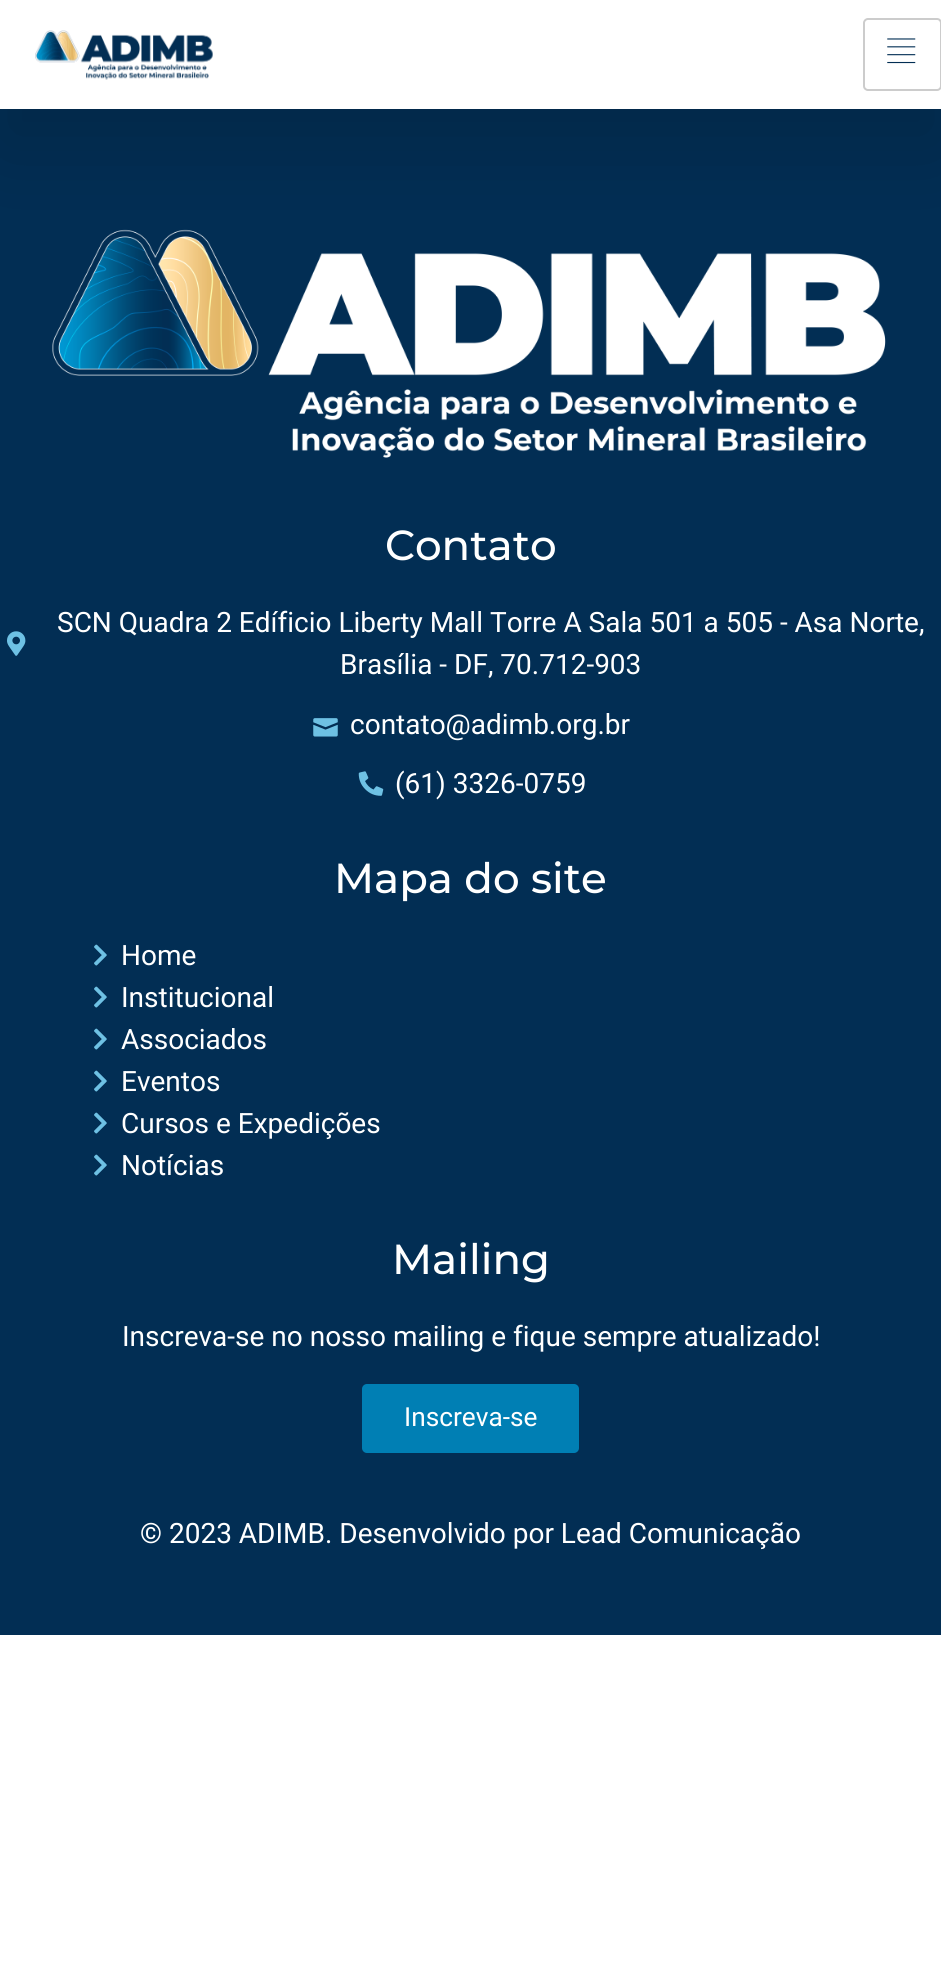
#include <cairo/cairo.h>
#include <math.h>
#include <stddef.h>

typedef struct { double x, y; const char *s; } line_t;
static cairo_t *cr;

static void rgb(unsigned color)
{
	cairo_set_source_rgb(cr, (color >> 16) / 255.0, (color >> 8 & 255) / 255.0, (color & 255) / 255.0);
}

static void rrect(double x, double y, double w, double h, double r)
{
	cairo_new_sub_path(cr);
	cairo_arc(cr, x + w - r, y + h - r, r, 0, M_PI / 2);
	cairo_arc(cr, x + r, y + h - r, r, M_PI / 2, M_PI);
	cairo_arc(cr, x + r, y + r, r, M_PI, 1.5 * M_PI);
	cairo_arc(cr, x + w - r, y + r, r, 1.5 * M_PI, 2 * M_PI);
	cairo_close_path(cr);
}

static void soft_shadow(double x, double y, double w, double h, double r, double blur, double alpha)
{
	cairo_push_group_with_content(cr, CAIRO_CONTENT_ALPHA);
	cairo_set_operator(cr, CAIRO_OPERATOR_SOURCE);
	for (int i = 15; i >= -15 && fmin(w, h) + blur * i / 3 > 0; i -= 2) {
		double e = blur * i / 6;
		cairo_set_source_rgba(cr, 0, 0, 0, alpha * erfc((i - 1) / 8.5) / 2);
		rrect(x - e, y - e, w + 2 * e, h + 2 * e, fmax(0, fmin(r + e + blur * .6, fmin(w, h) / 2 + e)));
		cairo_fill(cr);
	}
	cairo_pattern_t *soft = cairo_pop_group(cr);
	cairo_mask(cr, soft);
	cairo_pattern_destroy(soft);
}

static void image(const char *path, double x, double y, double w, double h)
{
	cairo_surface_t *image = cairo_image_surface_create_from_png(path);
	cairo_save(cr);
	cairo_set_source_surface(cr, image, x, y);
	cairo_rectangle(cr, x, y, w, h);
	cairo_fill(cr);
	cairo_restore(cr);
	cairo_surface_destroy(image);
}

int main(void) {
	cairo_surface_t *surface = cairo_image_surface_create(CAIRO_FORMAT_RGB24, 941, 1983);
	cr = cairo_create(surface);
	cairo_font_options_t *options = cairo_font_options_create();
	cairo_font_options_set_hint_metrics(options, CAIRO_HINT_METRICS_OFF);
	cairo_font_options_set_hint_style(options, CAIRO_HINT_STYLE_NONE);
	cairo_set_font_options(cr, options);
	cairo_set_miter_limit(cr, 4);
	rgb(0xffffff);
	cairo_paint(cr);
	rgb(0x022e54);
	cairo_rectangle(cr, 0, 109, 941, 1526);
	cairo_fill(cr);
	image("img/3.png", 52, 229, 834, 229);
	cairo_save(cr);
	cairo_set_fill_rule(cr, CAIRO_FILL_RULE_EVEN_ODD);
	cairo_new_path(cr);
	cairo_move_to(cr, 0, 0);
	cairo_line_to(cr, 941, 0);
	cairo_line_to(cr, 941, 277);
	cairo_line_to(cr, 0, 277);
	cairo_close_path(cr);
	cairo_move_to(cr, 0, 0);
	cairo_line_to(cr, 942, 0);
	cairo_line_to(cr, 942, 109);
	cairo_line_to(cr, 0, 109);
	cairo_close_path(cr);
	cairo_clip(cr);
	rgb(0x000000);
	soft_shadow(0, 35, 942, 109, 0, 44, 0.15);
	cairo_restore(cr);
	image("img/1.png", 35, 30, 178, 50);
	rrect(864, 19, 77, 71, 4);
	rgb(0xcccccc);
	cairo_stroke(cr);
	image("img/2.png", 887, 38, 29, 26);
	image("img/4.png", 7, 631, 19, 25);
	image("img/5.png", 313, 718, 25, 19);
	image("img/6.png", 358, 771, 26, 25);
	image("img/7.png", 94, 944, 13, 22);
	image("img/7.png", 94, 986, 13, 22);
	image("img/7.png", 94, 1028, 13, 22);
	image("img/7.png", 94, 1070, 13, 22);
	image("img/7.png", 94, 1112, 13, 22);
	image("img/7.png", 94, 1154, 13, 22);
	rgb(0x007fb4);
	rrect(362, 1384, 217, 69, 5);
	cairo_fill(cr);
	cairo_select_font_face(cr, "Montserrat Medium", CAIRO_FONT_SLANT_NORMAL, CAIRO_FONT_WEIGHT_NORMAL);
	cairo_set_font_size(cr, 42);
	rgb(0xffffff);
	cairo_move_to(cr, 385, 560);
	cairo_show_text(cr, "Contato");
	cairo_select_font_face(cr, "Roboto", CAIRO_FONT_SLANT_NORMAL, CAIRO_FONT_WEIGHT_NORMAL);
	cairo_set_font_size(cr, 28);
	{
		static const line_t items[] = {
			{57, 632, "SCN Quadra 2 Edíficio Liberty Mall Torre A Sala 501 a 505 - Asa Norte,"},
			{340, 674, "Brasília - DF, 70.712-903"},
			{350, 734, "contato@adimb.org.br"},
			{395, 793, "(61) 3326-0759"},
		};
		for (size_t i = 0; i < sizeof items / sizeof *items; i++) {
			cairo_move_to(cr, items[i].x, items[i].y);
			cairo_show_text(cr, items[i].s);
		}
	}
	cairo_select_font_face(cr, "Montserrat Medium", CAIRO_FONT_SLANT_NORMAL, CAIRO_FONT_WEIGHT_NORMAL);
	cairo_set_font_size(cr, 42);
	cairo_move_to(cr, 334, 893);
	cairo_show_text(cr, "Mapa do site");
	cairo_select_font_face(cr, "Roboto", CAIRO_FONT_SLANT_NORMAL, CAIRO_FONT_WEIGHT_NORMAL);
	cairo_set_font_size(cr, 28);
	{
		static const line_t items[] = {
			{121, 965, "Home"},
			{121, 1007, "Institucional"},
			{121, 1049, "Associados"},
			{121, 1091, "Eventos"},
			{121, 1133, "Cursos e Expedições"},
			{121, 1175, "Notícias"},
		};
		for (size_t i = 0; i < sizeof items / sizeof *items; i++) {
			cairo_move_to(cr, items[i].x, items[i].y);
			cairo_show_text(cr, items[i].s);
		}
	}
	cairo_select_font_face(cr, "Montserrat Medium", CAIRO_FONT_SLANT_NORMAL, CAIRO_FONT_WEIGHT_NORMAL);
	cairo_set_font_size(cr, 42);
	cairo_move_to(cr, 392, 1274);
	cairo_show_text(cr, "Mailing");
	cairo_select_font_face(cr, "Roboto", CAIRO_FONT_SLANT_NORMAL, CAIRO_FONT_WEIGHT_NORMAL);
	cairo_set_font_size(cr, 28);
	cairo_move_to(cr, 122, 1346);
	cairo_show_text(cr, "Inscreva-se no nosso mailing e fique sempre atualizado!");
	cairo_set_font_size(cr, 26.25);
	cairo_move_to(cr, 404, 1426);
	cairo_show_text(cr, "Inscreva-se");
	cairo_set_font_size(cr, 28);
	cairo_move_to(cr, 140, 1543);
	cairo_show_text(cr, "© 2023 ADIMB. Desenvolvido por Lead Comunicação");
	cairo_surface_write_to_png(surface, "page.png");
	cairo_font_options_destroy(options);
	cairo_destroy(cr);
	cairo_surface_destroy(surface);
	return 0;
}
